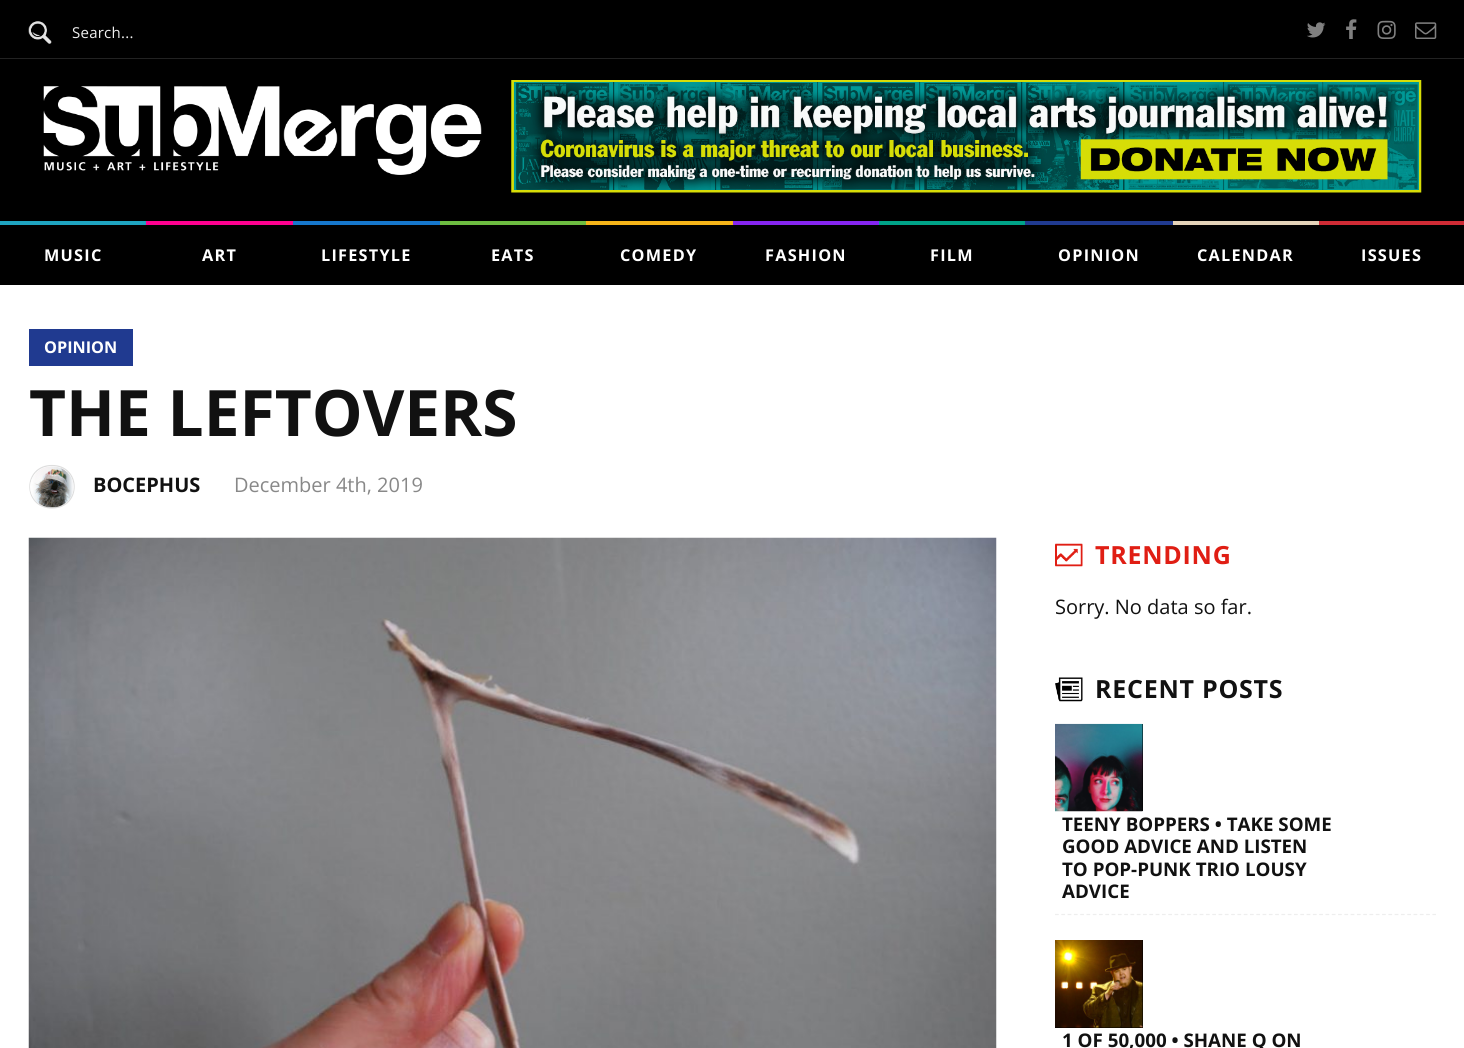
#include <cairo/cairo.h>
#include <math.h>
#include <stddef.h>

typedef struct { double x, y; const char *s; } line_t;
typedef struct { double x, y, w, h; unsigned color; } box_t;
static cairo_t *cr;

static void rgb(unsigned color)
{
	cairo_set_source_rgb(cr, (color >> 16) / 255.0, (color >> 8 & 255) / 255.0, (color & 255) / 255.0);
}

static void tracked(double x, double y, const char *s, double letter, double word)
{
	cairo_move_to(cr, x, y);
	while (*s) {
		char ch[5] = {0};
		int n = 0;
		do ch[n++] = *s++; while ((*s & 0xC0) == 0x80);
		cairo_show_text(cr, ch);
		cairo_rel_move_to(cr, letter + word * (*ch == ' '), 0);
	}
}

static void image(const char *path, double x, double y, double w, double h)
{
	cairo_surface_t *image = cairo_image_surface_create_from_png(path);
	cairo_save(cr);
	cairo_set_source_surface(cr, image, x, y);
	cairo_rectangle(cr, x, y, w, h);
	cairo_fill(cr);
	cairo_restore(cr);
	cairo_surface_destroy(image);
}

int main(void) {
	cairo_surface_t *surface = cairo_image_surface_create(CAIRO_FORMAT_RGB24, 1464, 1048);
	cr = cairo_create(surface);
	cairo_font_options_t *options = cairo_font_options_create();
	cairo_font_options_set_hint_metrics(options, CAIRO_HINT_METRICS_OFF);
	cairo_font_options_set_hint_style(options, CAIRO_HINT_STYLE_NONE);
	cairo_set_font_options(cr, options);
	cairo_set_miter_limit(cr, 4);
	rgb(0xffffff);
	cairo_paint(cr);
	rgb(0x000000);
	cairo_rectangle(cr, 0, 0, 1464, 285);
	cairo_fill(cr);
	rgb(0x222222);
	cairo_rectangle(cr, 0, 58, 1464, 1);
	cairo_fill(cr);
	image("img/1.png", 28, 21, 24, 23);
	image("img/2.png", 1307, 22, 19, 16);
	image("img/3.png", 1346, 19, 11, 20);
	image("img/4.png", 1377, 20, 19, 19);
	image("img/5.png", 1415, 22, 22, 17);
	image("img/6.png", 43, 86, 439, 89);
	image("img/7.png", 511, 80, 911, 113);
	{
		static const box_t items[] = {
			{0, 221, 146, 4, 0x1fa4c1},
			{146, 221, 147, 4, 0xff0090},
			{293, 221, 147, 4, 0x1677cc},
			{440, 221, 146, 4, 0x6dbd41},
			{586, 221, 147, 4, 0xf6b519},
			{733, 221, 146, 4, 0x8525ef},
			{879, 221, 146, 4, 0x00a388},
			{1025, 221, 148, 4, 0x203a90},
			{1173, 221, 146, 4, 0xe4d3b9},
			{1319, 221, 145, 4, 0xcf2b35},
			{29, 329, 104, 37, 0x203a90},
		};
		for (size_t i = 0; i < sizeof items / sizeof *items; i++) {
			rgb(items[i].color);
			cairo_rectangle(cr, items[i].x, items[i].y, items[i].w, items[i].h);
			cairo_fill(cr);
		}
	}
	cairo_new_path(cr);
	cairo_move_to(cr, 52, 465.5);
	cairo_curve_to(cr, 81.5, 465.5, 81.5, 508, 52, 508);
	cairo_curve_to(cr, 22.5, 508, 22.5, 465.5, 52, 465.5);
	cairo_close_path(cr);
	rgb(0xdddddd);
	cairo_set_line_width(cr, 1.2);
	cairo_stroke(cr);
	image("img/8.png", 30, 466, 44, 42);
	image("img/9.png", 28, 537, 969, 511);
	image("img/10.png", 1055, 543, 28, 24);
	image("img/11.png", 1055, 677, 28, 25);
	cairo_new_path(cr);
	cairo_move_to(cr, 1055, 914.5);
	cairo_line_to(cr, 1436, 914.5);
	rgb(0xeeeeee);
	cairo_set_dash(cr, (double[]){3.75, 2.54}, 2, 0);
	cairo_stroke(cr);
	rgb(0x000000);
	cairo_rectangle(cr, 1142, 724, 1, 87);
	cairo_fill(cr);
	image("img/12.png", 1055, 723, 88, 89);
	cairo_rectangle(cr, 1055, 940, 88, 88);
	cairo_fill(cr);
	image("img/13.png", 1055, 940, 88, 88);
	cairo_select_font_face(cr, "Open Sans", CAIRO_FONT_SLANT_NORMAL, CAIRO_FONT_WEIGHT_NORMAL);
	cairo_set_font_size(cr, 15);
	rgb(0xefefef);
	tracked(72, 38, "Search...", 0.25, 0);
	cairo_select_font_face(cr, "Open Sans", CAIRO_FONT_SLANT_NORMAL, CAIRO_FONT_WEIGHT_BOLD);
	cairo_set_font_size(cr, 16.25);
	rgb(0xffffff);
	{
		static const line_t items[] = {
			{44, 261, "MUSIC"},
			{202, 261, "ART"},
			{321, 261, "LIFESTYLE"},
			{491, 261, "EATS"},
			{620, 261, "COMEDY"},
			{765, 261, "FASHION"},
			{930, 261, "FILM"},
			{1058, 261, "OPINION"},
			{1197, 261, "CALENDAR"},
			{1361, 261, "ISSUES"},
		};
		for (size_t i = 0; i < sizeof items / sizeof *items; i++) {
			tracked(items[i].x, items[i].y, items[i].s, 1.25, 0);
		}
	}
	cairo_move_to(cr, 44, 353);
	cairo_show_text(cr, "OPINION");
	cairo_set_font_size(cr, 64);
	rgb(0x111111);
	cairo_move_to(cr, 29, 436);
	cairo_show_text(cr, "THE LEFTOVERS");
	cairo_set_font_size(cr, 20);
	cairo_move_to(cr, 93, 492);
	cairo_show_text(cr, "BOCEPHUS");
	cairo_select_font_face(cr, "Open Sans", CAIRO_FONT_SLANT_NORMAL, CAIRO_FONT_WEIGHT_NORMAL);
	rgb(0x888888);
	cairo_move_to(cr, 234, 492);
	cairo_show_text(cr, "December 4th, 2019");
	cairo_select_font_face(cr, "Open Sans", CAIRO_FONT_SLANT_NORMAL, CAIRO_FONT_WEIGHT_BOLD);
	cairo_set_font_size(cr, 25);
	rgb(0xe01e14);
	tracked(1095, 564, "TRENDING", 0.75, 0);
	cairo_select_font_face(cr, "Open Sans", CAIRO_FONT_SLANT_NORMAL, CAIRO_FONT_WEIGHT_NORMAL);
	cairo_set_font_size(cr, 20);
	rgb(0x111111);
	cairo_move_to(cr, 1055, 614);
	cairo_show_text(cr, "Sorry. No data so far.");
	cairo_select_font_face(cr, "Open Sans", CAIRO_FONT_SLANT_NORMAL, CAIRO_FONT_WEIGHT_BOLD);
	cairo_set_font_size(cr, 25);
	tracked(1095, 698, "RECENT POSTS", 0.75, 0);
	cairo_set_font_size(cr, 18.75);
	{
		static const line_t items[] = {
			{1062, 831, "TEENY BOPPERS • TAKE SOME"},
			{1062, 853, "GOOD ADVICE AND LISTEN"},
			{1062, 876, "TO POP-PUNK TRIO LOUSY"},
			{1062, 898, "ADVICE"},
			{1062, 1047, "1 OF 50,000 • SHANE Q ON"},
		};
		for (size_t i = 0; i < sizeof items / sizeof *items; i++) {
			cairo_move_to(cr, items[i].x, items[i].y);
			cairo_show_text(cr, items[i].s);
		}
	}
	cairo_surface_write_to_png(surface, "page.png");
	cairo_font_options_destroy(options);
	cairo_destroy(cr);
	cairo_surface_destroy(surface);
	return 0;
}
